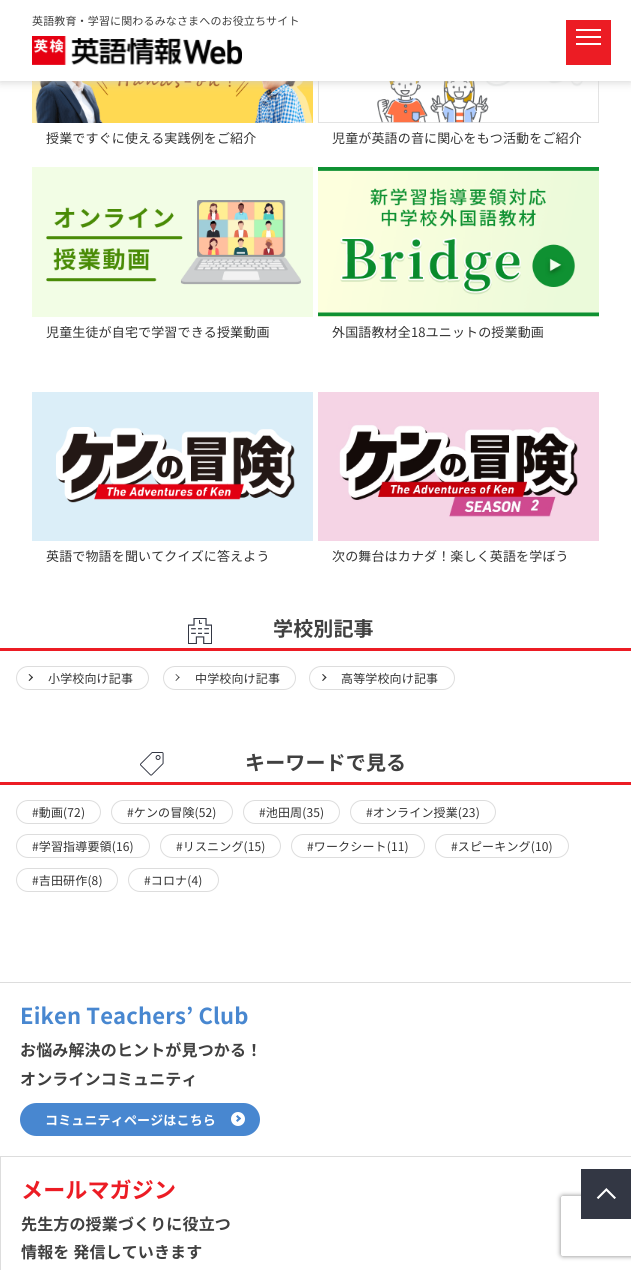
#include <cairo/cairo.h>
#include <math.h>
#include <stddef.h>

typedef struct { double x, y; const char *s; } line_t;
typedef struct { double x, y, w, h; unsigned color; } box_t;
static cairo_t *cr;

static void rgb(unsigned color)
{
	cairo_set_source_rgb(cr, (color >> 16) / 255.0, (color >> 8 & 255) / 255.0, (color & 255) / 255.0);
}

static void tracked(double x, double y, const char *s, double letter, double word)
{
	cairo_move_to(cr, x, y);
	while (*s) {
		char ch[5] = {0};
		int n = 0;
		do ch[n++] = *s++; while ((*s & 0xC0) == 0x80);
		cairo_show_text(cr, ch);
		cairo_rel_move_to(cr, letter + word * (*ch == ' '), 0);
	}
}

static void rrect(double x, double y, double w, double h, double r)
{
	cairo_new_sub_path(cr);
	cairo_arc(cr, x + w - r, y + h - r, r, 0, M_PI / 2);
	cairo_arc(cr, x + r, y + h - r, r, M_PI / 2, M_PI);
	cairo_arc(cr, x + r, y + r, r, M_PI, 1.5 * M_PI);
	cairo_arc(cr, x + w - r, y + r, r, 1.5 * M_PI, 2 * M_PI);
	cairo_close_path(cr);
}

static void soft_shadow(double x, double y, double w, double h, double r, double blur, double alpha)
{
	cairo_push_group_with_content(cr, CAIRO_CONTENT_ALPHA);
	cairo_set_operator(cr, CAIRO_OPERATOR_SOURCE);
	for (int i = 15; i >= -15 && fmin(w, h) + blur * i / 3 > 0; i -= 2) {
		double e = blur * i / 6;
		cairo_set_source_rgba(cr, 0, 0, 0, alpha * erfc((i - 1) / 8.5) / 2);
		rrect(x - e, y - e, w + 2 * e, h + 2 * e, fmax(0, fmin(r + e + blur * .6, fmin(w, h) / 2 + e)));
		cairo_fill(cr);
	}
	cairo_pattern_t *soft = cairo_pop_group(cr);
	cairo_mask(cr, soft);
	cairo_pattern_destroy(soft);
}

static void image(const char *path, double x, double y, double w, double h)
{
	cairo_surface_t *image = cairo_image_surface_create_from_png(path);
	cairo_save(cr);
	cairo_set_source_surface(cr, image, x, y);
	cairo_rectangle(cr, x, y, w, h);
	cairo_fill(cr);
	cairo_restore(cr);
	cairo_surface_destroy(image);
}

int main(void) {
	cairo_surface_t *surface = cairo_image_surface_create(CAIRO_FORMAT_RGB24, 631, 1270);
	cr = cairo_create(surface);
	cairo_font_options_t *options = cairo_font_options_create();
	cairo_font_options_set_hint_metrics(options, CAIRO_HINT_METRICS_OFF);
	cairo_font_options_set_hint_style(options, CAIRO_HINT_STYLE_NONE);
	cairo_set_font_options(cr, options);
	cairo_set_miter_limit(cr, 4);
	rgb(0xffffff);
	cairo_paint(cr);
	image("img/2.png", 32, 81, 281, 42);
	image("img/3.png", 318, 81, 281, 42);
	rgb(0xcccccc);
	soft_shadow(0, 0, 631, 81, 0, 5, 1);
	rgb(0xffffff);
	cairo_rectangle(cr, 0, 0, 631, 81);
	cairo_fill(cr);
	image("img/1.png", 32, 36, 210, 29);
	{
		static const box_t items[] = {
			{566, 20, 45, 45, 0xec1c24},
			{576, 29, 25, 2, 0xffffff},
			{576, 36, 25, 2, 0xffffff},
			{576, 43, 25, 2, 0xffffff},
		};
		for (size_t i = 0; i < sizeof items / sizeof *items; i++) {
			rgb(items[i].color);
			cairo_rectangle(cr, items[i].x, items[i].y, items[i].w, items[i].h);
			cairo_fill(cr);
		}
	}
	image("img/4.png", 32, 167, 281, 150);
	image("img/5.png", 318, 167, 281, 150);
	image("img/6.png", 32, 392, 281, 149);
	image("img/7.png", 318, 392, 281, 149);
	image("img/8.png", 188, 618, 24, 26);
	rgb(0xec1c24);
	cairo_rectangle(cr, 0, 648, 631, 3);
	cairo_fill(cr);
	rrect(16.5, 666.5, 132, 23, 11.5);
	rgb(0xdddddd);
	cairo_set_line_width(cr, 1);
	cairo_stroke(cr);
	rgb(0x333333);
	cairo_new_path(cr);
	cairo_move_to(cr, 29.5, 674);
	cairo_line_to(cr, 33, 677.5);
	cairo_line_to(cr, 32, 678);
	cairo_line_to(cr, 28.5, 674.5);
	cairo_close_path(cr);
	cairo_fill(cr);
	cairo_new_path(cr);
	cairo_move_to(cr, 32, 676.5);
	cairo_line_to(cr, 33, 677.5);
	cairo_line_to(cr, 29.5, 681);
	cairo_line_to(cr, 28.5, 680.5);
	cairo_close_path(cr);
	cairo_fill(cr);
	rrect(163.5, 666.5, 132, 23, 11.5);
	rgb(0xdddddd);
	cairo_stroke(cr);
	rgb(0x333333);
	cairo_new_path(cr);
	cairo_move_to(cr, 176, 674);
	cairo_line_to(cr, 179.5, 677.5);
	cairo_line_to(cr, 179, 678);
	cairo_line_to(cr, 175.5, 674.5);
	cairo_close_path(cr);
	cairo_fill(cr);
	cairo_new_path(cr);
	cairo_move_to(cr, 179, 676.5);
	cairo_line_to(cr, 179.5, 677.5);
	cairo_line_to(cr, 176, 681);
	cairo_line_to(cr, 175.5, 680.5);
	cairo_close_path(cr);
	cairo_fill(cr);
	rrect(309.5, 666.5, 145, 23, 11.5);
	rgb(0xdddddd);
	cairo_stroke(cr);
	rgb(0x333333);
	cairo_new_path(cr);
	cairo_move_to(cr, 323, 674);
	cairo_line_to(cr, 326.5, 677.5);
	cairo_line_to(cr, 325.5, 678);
	cairo_line_to(cr, 322, 674.5);
	cairo_close_path(cr);
	cairo_fill(cr);
	cairo_new_path(cr);
	cairo_move_to(cr, 325.5, 676.5);
	cairo_line_to(cr, 326.5, 677.5);
	cairo_line_to(cr, 323, 681);
	cairo_line_to(cr, 322, 680.5);
	cairo_close_path(cr);
	cairo_fill(cr);
	image("img/9.png", 140, 752, 24, 24);
	rgb(0xec1c24);
	cairo_rectangle(cr, 0, 782, 631, 3);
	cairo_fill(cr);
	rrect(16.5, 800.5, 84, 23, 11.5);
	rgb(0xdddddd);
	cairo_stroke(cr);
	rrect(111.5, 800.5, 121, 23, 11.5);
	cairo_stroke(cr);
	rrect(243.5, 800.5, 96, 23, 11.5);
	cairo_stroke(cr);
	rrect(350.5, 800.5, 145, 23, 11.5);
	cairo_stroke(cr);
	rrect(16.5, 834.5, 133, 23, 11.5);
	cairo_stroke(cr);
	rrect(160.5, 834.5, 120, 23, 11.5);
	cairo_stroke(cr);
	rrect(291.5, 834.5, 133, 23, 11.5);
	cairo_stroke(cr);
	rrect(435.5, 834.5, 133, 23, 11.5);
	cairo_stroke(cr);
	rrect(16.5, 868.5, 101, 23, 11.5);
	cairo_stroke(cr);
	rrect(128.5, 868.5, 90, 23, 11.5);
	cairo_stroke(cr);
	cairo_rectangle(cr, 0, 982, 631, 1);
	cairo_fill(cr);
	rgb(0x4887d0);
	rrect(20, 1103, 240, 33, 16.5);
	cairo_fill(cr);
	rgb(0xffffff);
	cairo_arc(cr, 238, 1119, 7, 0, 2 * M_PI);
	cairo_fill(cr);
	rgb(0x4887d0);
	cairo_new_path(cr);
	cairo_move_to(cr, 237.5, 1115);
	cairo_line_to(cr, 241, 1118.5);
	cairo_line_to(cr, 239.5, 1120);
	cairo_line_to(cr, 236, 1116.5);
	cairo_close_path(cr);
	cairo_fill(cr);
	cairo_new_path(cr);
	cairo_move_to(cr, 239.5, 1117);
	cairo_line_to(cr, 241, 1118.5);
	cairo_line_to(cr, 237.5, 1122);
	cairo_line_to(cr, 236, 1120.5);
	cairo_close_path(cr);
	cairo_fill(cr);
	rgb(0xdddddd);
	cairo_rectangle(cr, 0, 1156, 631, 1);
	cairo_fill(cr);
	cairo_rectangle(cr, 0, 1156, 1, 114);
	cairo_fill(cr);
	cairo_save(cr);
	cairo_set_fill_rule(cr, CAIRO_FILL_RULE_EVEN_ODD);
	cairo_new_path(cr);
	cairo_move_to(cr, 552, 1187);
	cairo_line_to(cr, 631, 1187);
	cairo_line_to(cr, 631, 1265);
	cairo_line_to(cr, 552, 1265);
	cairo_close_path(cr);
	cairo_move_to(cr, 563, 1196);
	cairo_line_to(cr, 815, 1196);
	cairo_curve_to(cr, 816, 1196, 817, 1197, 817, 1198);
	cairo_line_to(cr, 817, 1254);
	cairo_curve_to(cr, 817, 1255, 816, 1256, 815, 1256);
	cairo_line_to(cr, 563, 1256);
	cairo_curve_to(cr, 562, 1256, 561, 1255, 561, 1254);
	cairo_line_to(cr, 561, 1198);
	cairo_curve_to(cr, 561, 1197, 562, 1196, 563, 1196);
	cairo_close_path(cr);
	cairo_clip(cr);
	rgb(0x808080);
	soft_shadow(561, 1196, 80, 60, 2, 2.5, 1);
	cairo_restore(cr);
	image("img/10.png", 581, 1169, 50, 50);
	cairo_select_font_face(cr, "Noto Sans JP", CAIRO_FONT_SLANT_NORMAL, CAIRO_FONT_WEIGHT_NORMAL);
	cairo_set_font_size(cr, 11);
	rgb(0x404040);
	tracked(32, 25, "英語教育・学習に関わるみなさまへのお役立ちサイト", 0.15, 0);
	cairo_set_font_size(cr, 13);
	rgb(0x333333);
	{
		static const line_t items[] = {
			{46, 143, "授業ですぐに使える実践例をご紹介"},
			{332, 143, "児童が英語の音に関心をもつ活動をご紹介"},
			{46, 337, "児童生徒が自宅で学習できる授業動画"},
			{332, 337, "外国語教材全18ユニットの授業動画"},
			{46, 561, "英語で物語を聞いてクイズに答えよう"},
			{332, 561, "次の舞台はカナダ！楽しく英語を学ぼう"},
		};
		for (size_t i = 0; i < sizeof items / sizeof *items; i++) {
			tracked(items[i].x, items[i].y, items[i].s, 0.15, 0);
		}
	}
	cairo_select_font_face(cr, "Noto Sans JP", CAIRO_FONT_SLANT_NORMAL, CAIRO_FONT_WEIGHT_BOLD);
	cairo_set_font_size(cr, 20);
	rgb(0x404040);
	tracked(273, 636, "学校別記事", 0.15, 0);
	cairo_select_font_face(cr, "Noto Sans JP", CAIRO_FONT_SLANT_NORMAL, CAIRO_FONT_WEIGHT_NORMAL);
	cairo_set_font_size(cr, 12);
	rgb(0x333333);
	{
		static const line_t items[] = {
			{48, 683, "小学校向け記事"},
			{195, 683, "中学校向け記事"},
			{341, 683, "高等学校向け記事"},
		};
		for (size_t i = 0; i < sizeof items / sizeof *items; i++) {
			tracked(items[i].x, items[i].y, items[i].s, 0.15, 0);
		}
	}
	cairo_select_font_face(cr, "Noto Sans JP", CAIRO_FONT_SLANT_NORMAL, CAIRO_FONT_WEIGHT_BOLD);
	cairo_set_font_size(cr, 20);
	rgb(0x404040);
	tracked(245, 770, "キーワードで見る", 0.15, 0);
	cairo_select_font_face(cr, "Noto Sans JP", CAIRO_FONT_SLANT_NORMAL, CAIRO_FONT_WEIGHT_NORMAL);
	cairo_set_font_size(cr, 12);
	rgb(0x333333);
	{
		static const line_t items[] = {
			{32, 817, "#動画(72)"},
			{127, 817, "#ケンの冒険(52)"},
			{259, 817, "#池田周(35)"},
			{366, 817, "#オンライン授業(23)"},
			{32, 851, "#学習指導要領(16)"},
			{176, 851, "#リスニング(15)"},
			{307, 851, "#ワークシート(11)"},
			{451, 851, "#スピーキング(10)"},
			{32, 885, "#吉田研作(8)"},
			{144, 885, "#コロナ(4)"},
		};
		for (size_t i = 0; i < sizeof items / sizeof *items; i++) {
			tracked(items[i].x, items[i].y, items[i].s, 0.15, 0);
		}
	}
	cairo_select_font_face(cr, "Noto Sans JP", CAIRO_FONT_SLANT_NORMAL, CAIRO_FONT_WEIGHT_BOLD);
	cairo_set_font_size(cr, 22);
	rgb(0x4887d0);
	tracked(20, 1024, "Eiken Teachers’ Club", 0.15, 0);
	cairo_set_font_size(cr, 16);
	rgb(0x404040);
	tracked(20, 1056, "お悩み解決のヒントが見つかる！", 0.15, 0);
	tracked(20, 1085, "オンラインコミュニティ", 0.15, 0);
	cairo_set_font_size(cr, 13);
	rgb(0xffffff);
	tracked(45, 1125, "コミュニティページはこちら", 0.15, 0);
	cairo_set_font_size(cr, 22);
	rgb(0xec1c24);
	tracked(21, 1198, "メールマガジン", 0.15, 0);
	cairo_set_font_size(cr, 16);
	rgb(0x404040);
	tracked(21, 1230, "先生方の授業づくりに役立つ", 0.15, 0);
	tracked(21, 1258, "情報を 発信していきます", 0.15, 0);
	cairo_surface_write_to_png(surface, "page.png");
	cairo_font_options_destroy(options);
	cairo_destroy(cr);
	cairo_surface_destroy(surface);
	return 0;
}
